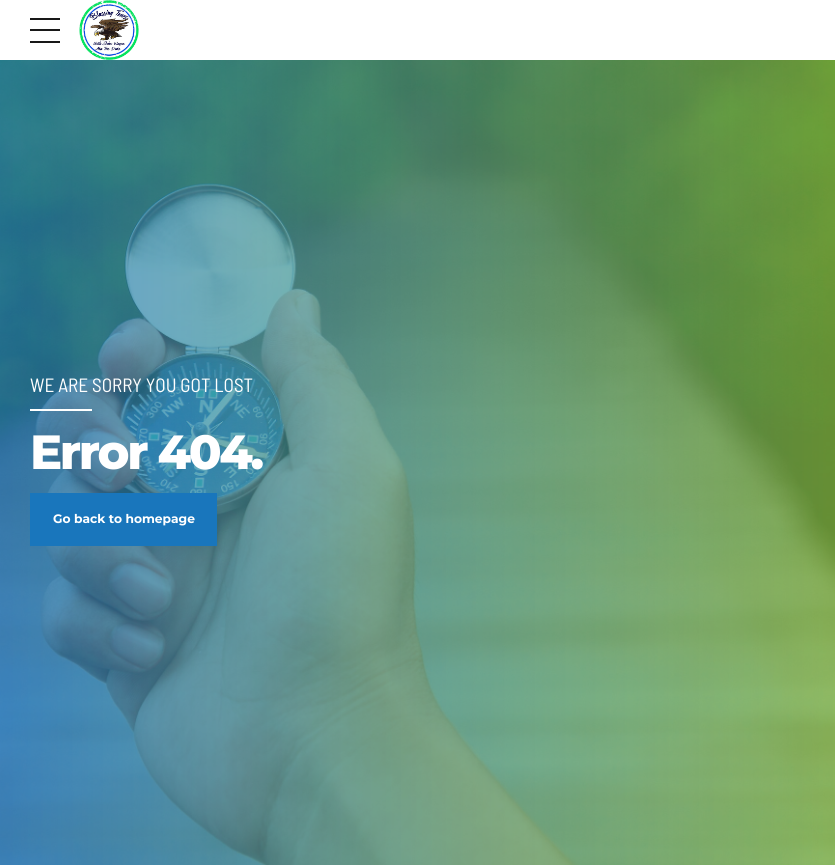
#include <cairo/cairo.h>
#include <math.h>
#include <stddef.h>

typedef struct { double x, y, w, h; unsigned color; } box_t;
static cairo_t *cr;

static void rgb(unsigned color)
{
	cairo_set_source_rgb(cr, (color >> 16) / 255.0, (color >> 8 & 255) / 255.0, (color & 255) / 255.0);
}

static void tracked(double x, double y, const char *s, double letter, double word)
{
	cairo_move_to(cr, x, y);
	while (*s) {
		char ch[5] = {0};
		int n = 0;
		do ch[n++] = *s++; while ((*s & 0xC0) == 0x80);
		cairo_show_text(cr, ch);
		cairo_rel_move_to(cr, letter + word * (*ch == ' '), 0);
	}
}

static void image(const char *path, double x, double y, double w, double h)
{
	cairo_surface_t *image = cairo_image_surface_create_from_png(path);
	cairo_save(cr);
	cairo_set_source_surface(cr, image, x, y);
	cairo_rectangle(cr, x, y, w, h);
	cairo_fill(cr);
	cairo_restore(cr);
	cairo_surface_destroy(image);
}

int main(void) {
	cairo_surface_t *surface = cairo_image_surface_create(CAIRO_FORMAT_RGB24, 835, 865);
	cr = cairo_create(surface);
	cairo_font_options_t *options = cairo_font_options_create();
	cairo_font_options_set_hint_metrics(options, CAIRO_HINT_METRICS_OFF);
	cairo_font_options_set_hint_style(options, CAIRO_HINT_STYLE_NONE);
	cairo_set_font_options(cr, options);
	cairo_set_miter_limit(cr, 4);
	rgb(0xffffff);
	cairo_paint(cr);
	{
		static const box_t items[] = {
			{30, 18, 30, 2, 0x181818},
			{30, 29, 30, 2, 0x181818},
			{30, 41, 30, 2, 0x181818},
		};
		for (size_t i = 0; i < sizeof items / sizeof *items; i++) {
			rgb(items[i].color);
			cairo_rectangle(cr, items[i].x, items[i].y, items[i].w, items[i].h);
			cairo_fill(cr);
		}
	}
	image("img/1.png", 79, 0, 60, 60);
	image("img/2.png", 0, 60, 835, 805);
	rgb(0xffffff);
	cairo_rectangle(cr, 30, 409, 62, 2);
	cairo_fill(cr);
	rgb(0x1976bc);
	cairo_rectangle(cr, 30, 493, 187, 53);
	cairo_fill(cr);
	cairo_select_font_face(cr, "Barlow Semi Condensed", CAIRO_FONT_SLANT_NORMAL, CAIRO_FONT_WEIGHT_NORMAL);
	cairo_set_font_size(cr, 19.25);
	rgb(0xffffff);
	cairo_move_to(cr, 30, 392);
	cairo_show_text(cr, "WE ARE SORRY YOU GOT LOST");
	cairo_select_font_face(cr, "Montserrat ExtraBold", CAIRO_FONT_SLANT_NORMAL, CAIRO_FONT_WEIGHT_NORMAL);
	cairo_set_font_size(cr, 48);
	tracked(30, 469, "Error 404.", -2.4, 0);
	cairo_select_font_face(cr, "Montserrat", CAIRO_FONT_SLANT_NORMAL, CAIRO_FONT_WEIGHT_BOLD);
	cairo_set_font_size(cr, 12.25);
	cairo_move_to(cr, 53, 523);
	cairo_show_text(cr, "Go back to homepage");
	cairo_surface_write_to_png(surface, "page.png");
	cairo_font_options_destroy(options);
	cairo_destroy(cr);
	cairo_surface_destroy(surface);
	return 0;
}
